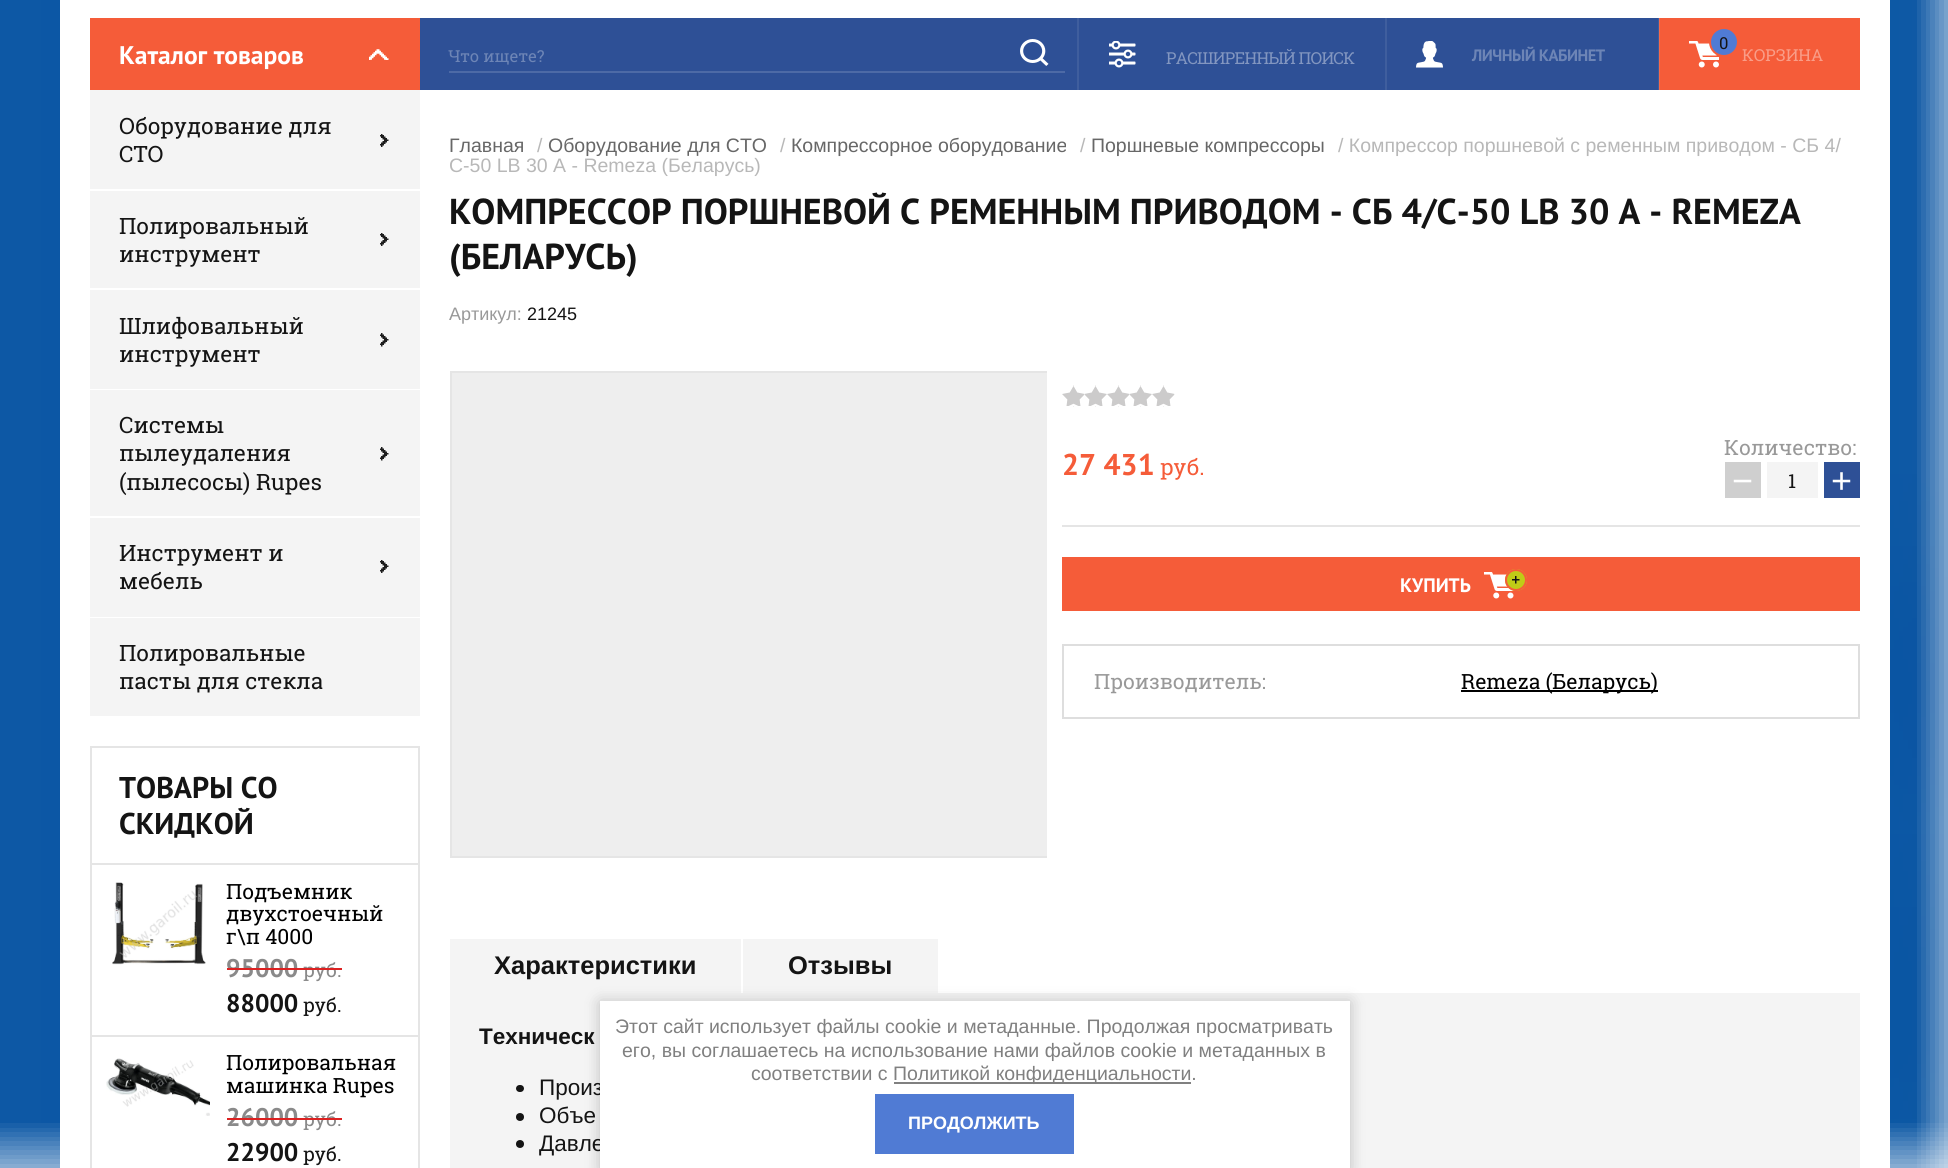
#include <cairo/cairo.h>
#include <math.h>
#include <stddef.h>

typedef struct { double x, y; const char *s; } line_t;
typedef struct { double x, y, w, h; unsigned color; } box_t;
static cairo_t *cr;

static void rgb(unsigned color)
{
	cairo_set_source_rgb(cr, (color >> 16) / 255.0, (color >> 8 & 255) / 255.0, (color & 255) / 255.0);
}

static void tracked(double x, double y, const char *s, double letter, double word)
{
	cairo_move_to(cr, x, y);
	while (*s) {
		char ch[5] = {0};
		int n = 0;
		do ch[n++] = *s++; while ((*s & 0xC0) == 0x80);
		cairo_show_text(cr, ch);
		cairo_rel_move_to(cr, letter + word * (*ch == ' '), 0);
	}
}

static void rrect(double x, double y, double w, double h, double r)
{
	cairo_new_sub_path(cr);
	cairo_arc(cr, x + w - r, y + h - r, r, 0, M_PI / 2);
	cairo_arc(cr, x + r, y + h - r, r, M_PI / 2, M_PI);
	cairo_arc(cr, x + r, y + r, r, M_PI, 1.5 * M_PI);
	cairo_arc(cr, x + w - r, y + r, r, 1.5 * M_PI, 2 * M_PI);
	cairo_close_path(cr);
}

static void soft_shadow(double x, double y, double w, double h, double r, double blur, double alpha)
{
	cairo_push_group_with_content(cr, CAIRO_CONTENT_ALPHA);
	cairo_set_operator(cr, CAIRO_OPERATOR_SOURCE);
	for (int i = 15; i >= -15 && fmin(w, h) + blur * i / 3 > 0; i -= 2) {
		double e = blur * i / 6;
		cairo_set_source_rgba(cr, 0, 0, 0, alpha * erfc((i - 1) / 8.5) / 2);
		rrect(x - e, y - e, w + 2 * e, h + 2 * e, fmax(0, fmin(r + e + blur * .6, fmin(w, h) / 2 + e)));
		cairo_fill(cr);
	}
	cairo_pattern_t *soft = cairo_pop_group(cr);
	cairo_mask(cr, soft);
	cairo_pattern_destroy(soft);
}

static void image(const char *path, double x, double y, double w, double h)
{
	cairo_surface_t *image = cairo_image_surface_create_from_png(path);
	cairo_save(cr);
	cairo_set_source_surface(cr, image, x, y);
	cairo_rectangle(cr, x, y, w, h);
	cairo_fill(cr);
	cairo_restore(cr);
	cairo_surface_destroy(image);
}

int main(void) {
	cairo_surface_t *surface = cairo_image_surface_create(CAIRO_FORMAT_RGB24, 1948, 1168);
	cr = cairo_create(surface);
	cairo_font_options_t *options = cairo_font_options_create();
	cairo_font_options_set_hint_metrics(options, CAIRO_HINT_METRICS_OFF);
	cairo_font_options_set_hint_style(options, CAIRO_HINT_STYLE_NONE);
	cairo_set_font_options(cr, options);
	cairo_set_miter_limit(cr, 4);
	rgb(0xffffff);
	cairo_paint(cr);
	image("img/1.png", 0, 0, 1948, 1168);
	{
		static const box_t items[] = {
			{60, 0, 1830, 1168, 0xffffff},
			{420, 18, 1239, 72, 0x2e5096},
			{90, 18, 330, 72, 0xf55c39},
		};
		for (size_t i = 0; i < sizeof items / sizeof *items; i++) {
			rgb(items[i].color);
			cairo_rectangle(cr, items[i].x, items[i].y, items[i].w, items[i].h);
			cairo_fill(cr);
		}
	}
	image("img/2.png", 369, 49, 20, 11);
	rgb(0x4d6aa6);
	cairo_rectangle(cr, 449, 71, 616, 2);
	cairo_fill(cr);
	image("img/3.png", 1020, 39, 29, 27);
	image("img/4.png", 1109, 41, 27, 27);
	rgb(0x3f5e9e);
	cairo_rectangle(cr, 1077, 18, 2, 72);
	cairo_fill(cr);
	image("img/5.png", 1416, 41, 27, 27);
	rgb(0xf55c39);
	cairo_rectangle(cr, 1659, 18, 201, 72);
	cairo_fill(cr);
	cairo_set_source_rgba(cr, 1, 1, 1, 0.08);
	cairo_rectangle(cr, 1658, 18, 2, 72);
	cairo_fill(cr);
	rgb(0x3f5e9e);
	cairo_rectangle(cr, 1385, 18, 2, 72);
	cairo_fill(cr);
	image("img/6.png", 1689, 41, 30, 27);
	rgb(0x507bd4);
	cairo_arc(cr, 1724, 42, 14, 0, 2 * M_PI);
	cairo_fill_preserve(cr);
	rgb(0xf55c39);
	cairo_stroke(cr);
	rgb(0xf4f4f4);
	cairo_rectangle(cr, 90, 90, 330, 99);
	cairo_fill(cr);
	image("img/7.png", 380, 134, 9, 13);
	cairo_rectangle(cr, 90, 191, 330, 97);
	cairo_fill(cr);
	image("img/7.png", 380, 233, 9, 13);
	cairo_rectangle(cr, 90, 290, 330, 99);
	cairo_fill(cr);
	image("img/8.png", 380, 333, 9, 14);
	cairo_rectangle(cr, 90, 390, 330, 126);
	cairo_fill(cr);
	image("img/8.png", 380, 447, 9, 14);
	cairo_rectangle(cr, 90, 518, 330, 99);
	cairo_fill(cr);
	image("img/7.png", 380, 560, 9, 13);
	cairo_rectangle(cr, 90, 618, 330, 98);
	cairo_fill(cr);
	cairo_rectangle(cr, 91, 747, 328, 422);
	rgb(0xe5e5e5);
	cairo_stroke(cr);
	cairo_rectangle(cr, 92, 863, 327, 2);
	cairo_fill(cr);
	image("img/9.png", 112, 882, 94, 83);
	cairo_rectangle(cr, 92, 1035, 327, 2);
	cairo_fill(cr);
	image("img/10.png", 106, 1058, 104, 58);
	rgb(0xeeeeee);
	cairo_rectangle(cr, 452, 373, 595, 483);
	cairo_fill(cr);
	cairo_save(cr);
	cairo_rectangle(cr, 450, 371, 597, 523);
	cairo_clip(cr);
	cairo_rectangle(cr, 451, 372, 597, 485);
	rgb(0xe5e5e5);
	cairo_stroke(cr);
	cairo_restore(cr);
	image("img/11.png", 1062, 385, 113, 22);
	{
		static const box_t items[] = {
			{1725, 462, 36, 36, 0xcfcfcf},
			{1767, 462, 51, 36, 0xf4f4f4},
			{1824, 462, 36, 36, 0x2e5096},
			{1062, 525, 798, 2, 0xe5e5e5},
			{1062, 557, 798, 54, 0xf55c39},
		};
		for (size_t i = 0; i < sizeof items / sizeof *items; i++) {
			rgb(items[i].color);
			cairo_rectangle(cr, items[i].x, items[i].y, items[i].w, items[i].h);
			cairo_fill(cr);
		}
	}
	image("img/12.png", 1484, 572, 30, 27);
	rgb(0xc0cb17);
	cairo_arc(cr, 1516, 580, 11, 0, 2 * M_PI);
	cairo_fill(cr);
	image("img/13.png", 1512, 576, 8, 8);
	cairo_arc(cr, 1516, 580, 10, 0, 2 * M_PI);
	rgb(0xf55c39);
	cairo_stroke(cr);
	cairo_rectangle(cr, 1063, 645, 796, 73);
	rgb(0xdedede);
	cairo_stroke(cr);
	{
		static const box_t items[] = {
			{1461, 690, 197, 2, 0x000000},
			{450, 939, 291, 54, 0xf4f4f4},
			{743, 939, 195, 54, 0xf4f4f4},
			{450, 993, 1410, 175, 0xf4f4f4},
		};
		for (size_t i = 0; i < sizeof items / sizeof *items; i++) {
			rgb(items[i].color);
			cairo_rectangle(cr, items[i].x, items[i].y, items[i].w, items[i].h);
			cairo_fill(cr);
		}
	}
	rgb(0x141414);
	rrect(516, 1085, 8, 7, 3.5);
	cairo_fill(cr);
	cairo_arc(cr, 520, 1117, 4, 0, 2 * M_PI);
	cairo_fill(cr);
	cairo_arc(cr, 520, 1144, 4, 0, 2 * M_PI);
	cairo_fill(cr);
	rgb(0x000000);
	soft_shadow(600, 1002, 750, 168, 0, 7.5, 0.23);
	cairo_select_font_face(cr, "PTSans", CAIRO_FONT_SLANT_NORMAL, CAIRO_FONT_WEIGHT_BOLD);
	cairo_set_font_size(cr, 25.5);
	rgb(0xffffff);
	cairo_move_to(cr, 119, 64);
	cairo_show_text(cr, "Каталог товаров");
	cairo_select_font_face(cr, "Roboto Slab", CAIRO_FONT_SLANT_NORMAL, CAIRO_FONT_WEIGHT_NORMAL);
	cairo_set_font_size(cr, 16.5);
	rgb(0x6d85b6);
	cairo_move_to(cr, 448, 62);
	cairo_show_text(cr, "Что ищете?");
	rgb(0x8296c0);
	tracked(1166, 64, "РАСШИРЕННЫЙ ПОИСК", -0.7, 0);
	cairo_select_font_face(cr, "PTSans", CAIRO_FONT_SLANT_NORMAL, CAIRO_FONT_WEIGHT_BOLD);
	rgb(0x6d85b6);
	tracked(1472, 61, "ЛИЧНЫЙ КАБИНЕТ", -0.5, 0);
	cairo_select_font_face(cr, "Roboto Slab", CAIRO_FONT_SLANT_NORMAL, CAIRO_FONT_WEIGHT_NORMAL);
	rgb(0x141414);
	cairo_move_to(cr, 1719, 49);
	cairo_show_text(cr, "0");
	rgb(0xf99d88);
	cairo_move_to(cr, 1742, 61);
	cairo_show_text(cr, "КОРЗИНА");
	cairo_set_font_size(cr, 22.5);
	rgb(0x141414);
	{
		static const line_t items[] = {
			{119, 134, "Оборудование для"},
			{119, 162, "СТО"},
			{119, 234, "Полировальный"},
			{119, 262, "инструмент"},
			{119, 334, "Шлифовальный"},
			{119, 362, "инструмент"},
			{119, 433, "Системы"},
			{119, 461, "пылеудаления"},
			{119, 490, "(пылесосы) Rupes"},
			{119, 561, "Инструмент и"},
			{119, 589, "мебель"},
			{119, 661, "Полировальные"},
			{119, 689, "пасты для стекла"},
		};
		for (size_t i = 0; i < sizeof items / sizeof *items; i++) {
			cairo_move_to(cr, items[i].x, items[i].y);
			cairo_show_text(cr, items[i].s);
		}
	}
	cairo_select_font_face(cr, "PTSans", CAIRO_FONT_SLANT_NORMAL, CAIRO_FONT_WEIGHT_BOLD);
	cairo_set_font_size(cr, 30);
	cairo_move_to(cr, 119, 798);
	cairo_show_text(cr, "ТОВАРЫ СО");
	cairo_move_to(cr, 119, 834);
	cairo_show_text(cr, "СКИДКОЙ");
	cairo_select_font_face(cr, "Roboto Slab", CAIRO_FONT_SLANT_NORMAL, CAIRO_FONT_WEIGHT_NORMAL);
	cairo_set_font_size(cr, 21);
	rgb(0x000000);
	{
		static const line_t items[] = {
			{226, 899, "Подъемник"},
			{226, 921, "двухстоечный"},
			{226, 944, "г\\п 4000"},
		};
		for (size_t i = 0; i < sizeof items / sizeof *items; i++) {
			cairo_move_to(cr, items[i].x, items[i].y);
			cairo_show_text(cr, items[i].s);
		}
	}
	cairo_select_font_face(cr, "PTSans", CAIRO_FONT_SLANT_NORMAL, CAIRO_FONT_WEIGHT_BOLD);
	cairo_set_font_size(cr, 25.5);
	rgb(0x8a8a8a);
	cairo_move_to(cr, 226, 977);
	cairo_show_text(cr, "95000");
	cairo_select_font_face(cr, "Roboto Slab", CAIRO_FONT_SLANT_NORMAL, CAIRO_FONT_WEIGHT_NORMAL);
	cairo_set_font_size(cr, 19.5);
	cairo_move_to(cr, 303, 977);
	cairo_show_text(cr, "руб.");
	rgb(0xdc2222);
	cairo_rectangle(cr, 227, 968, 115, 2);
	cairo_fill(cr);
	cairo_select_font_face(cr, "PTSans", CAIRO_FONT_SLANT_NORMAL, CAIRO_FONT_WEIGHT_BOLD);
	cairo_set_font_size(cr, 25.5);
	rgb(0x141414);
	cairo_move_to(cr, 226, 1012);
	cairo_show_text(cr, "88000");
	cairo_select_font_face(cr, "Roboto Slab", CAIRO_FONT_SLANT_NORMAL, CAIRO_FONT_WEIGHT_NORMAL);
	cairo_set_font_size(cr, 19.5);
	cairo_move_to(cr, 303, 1012);
	cairo_show_text(cr, "руб.");
	cairo_set_font_size(cr, 21);
	rgb(0x000000);
	cairo_move_to(cr, 226, 1070);
	cairo_show_text(cr, "Полировальная");
	cairo_move_to(cr, 226, 1093);
	cairo_show_text(cr, "машинка Rupes");
	cairo_select_font_face(cr, "PTSans", CAIRO_FONT_SLANT_NORMAL, CAIRO_FONT_WEIGHT_BOLD);
	cairo_set_font_size(cr, 25.5);
	rgb(0x8a8a8a);
	cairo_move_to(cr, 226, 1126);
	cairo_show_text(cr, "26000");
	cairo_select_font_face(cr, "Roboto Slab", CAIRO_FONT_SLANT_NORMAL, CAIRO_FONT_WEIGHT_NORMAL);
	cairo_set_font_size(cr, 19.5);
	cairo_move_to(cr, 303, 1126);
	cairo_show_text(cr, "руб.");
	rgb(0xdc2222);
	cairo_rectangle(cr, 227, 1118, 115, 2);
	cairo_fill(cr);
	cairo_select_font_face(cr, "PTSans", CAIRO_FONT_SLANT_NORMAL, CAIRO_FONT_WEIGHT_BOLD);
	cairo_set_font_size(cr, 25.5);
	rgb(0x141414);
	cairo_move_to(cr, 226, 1161);
	cairo_show_text(cr, "22900");
	cairo_select_font_face(cr, "Roboto Slab", CAIRO_FONT_SLANT_NORMAL, CAIRO_FONT_WEIGHT_NORMAL);
	cairo_set_font_size(cr, 19.5);
	cairo_move_to(cr, 303, 1161);
	cairo_show_text(cr, "руб.");
	cairo_select_font_face(cr, "Liberation Sans", CAIRO_FONT_SLANT_NORMAL, CAIRO_FONT_WEIGHT_NORMAL);
	rgb(0x676767);
	cairo_move_to(cr, 449, 152);
	cairo_show_text(cr, "Главная");
	rgb(0xb8b8b8);
	cairo_move_to(cr, 537, 152);
	cairo_show_text(cr, "/");
	rgb(0x676767);
	cairo_move_to(cr, 548, 152);
	cairo_show_text(cr, "Оборудование для СТО");
	rgb(0xb8b8b8);
	cairo_move_to(cr, 780, 152);
	cairo_show_text(cr, "/");
	rgb(0x676767);
	cairo_move_to(cr, 791, 152);
	cairo_show_text(cr, "Компрессорное оборудование");
	rgb(0xb8b8b8);
	cairo_move_to(cr, 1080, 152);
	cairo_show_text(cr, "/");
	rgb(0x676767);
	cairo_move_to(cr, 1091, 152);
	cairo_show_text(cr, "Поршневые компрессоры");
	rgb(0xb8b8b8);
	cairo_move_to(cr, 1338, 152);
	cairo_show_text(cr, "/ Компрессор поршневой с ременным приводом - СБ 4/");
	cairo_move_to(cr, 449, 172);
	cairo_show_text(cr, "С-50 LB 30 A - Remeza (Беларусь)");
	cairo_select_font_face(cr, "PTSans", CAIRO_FONT_SLANT_NORMAL, CAIRO_FONT_WEIGHT_BOLD);
	cairo_set_font_size(cr, 36);
	rgb(0x141414);
	cairo_move_to(cr, 449, 224);
	cairo_show_text(cr, "КОМПРЕССОР ПОРШНЕВОЙ С РЕМЕННЫМ ПРИВОДОМ - СБ 4/С-50 LB 30 A - REMEZA");
	cairo_move_to(cr, 449, 269);
	cairo_show_text(cr, "(БЕЛАРУСЬ)");
	cairo_select_font_face(cr, "Liberation Sans", CAIRO_FONT_SLANT_NORMAL, CAIRO_FONT_WEIGHT_NORMAL);
	cairo_set_font_size(cr, 18);
	rgb(0x999999);
	cairo_move_to(cr, 449, 320);
	cairo_show_text(cr, "Артикул:");
	rgb(0x141414);
	cairo_move_to(cr, 527, 320);
	cairo_show_text(cr, "21245");
	cairo_select_font_face(cr, "PTSans", CAIRO_FONT_SLANT_NORMAL, CAIRO_FONT_WEIGHT_BOLD);
	cairo_set_font_size(cr, 30);
	rgb(0xf55c39);
	cairo_move_to(cr, 1062, 475);
	cairo_show_text(cr, "27 431");
	cairo_select_font_face(cr, "Roboto Slab", CAIRO_FONT_SLANT_NORMAL, CAIRO_FONT_WEIGHT_NORMAL);
	cairo_set_font_size(cr, 22.5);
	cairo_move_to(cr, 1160, 475);
	cairo_show_text(cr, "руб.");
	cairo_set_font_size(cr, 21);
	rgb(0x999999);
	cairo_move_to(cr, 1724, 455);
	cairo_show_text(cr, "Количество:");
	cairo_select_font_face(cr, "Liberation Sans", CAIRO_FONT_SLANT_NORMAL, CAIRO_FONT_WEIGHT_NORMAL);
	cairo_set_font_size(cr, 36);
	rgb(0xffffff);
	cairo_move_to(cr, 1732, 493);
	cairo_show_text(cr, "−");
	cairo_select_font_face(cr, "Roboto Slab", CAIRO_FONT_SLANT_NORMAL, CAIRO_FONT_WEIGHT_NORMAL);
	cairo_set_font_size(cr, 19.5);
	rgb(0x141414);
	cairo_move_to(cr, 1788, 488);
	cairo_show_text(cr, "1");
	cairo_select_font_face(cr, "Liberation Sans", CAIRO_FONT_SLANT_NORMAL, CAIRO_FONT_WEIGHT_NORMAL);
	cairo_set_font_size(cr, 36);
	rgb(0xffffff);
	cairo_move_to(cr, 1831, 493);
	cairo_show_text(cr, "+");
	cairo_select_font_face(cr, "PTSans", CAIRO_FONT_SLANT_NORMAL, CAIRO_FONT_WEIGHT_BOLD);
	cairo_set_font_size(cr, 19.5);
	cairo_move_to(cr, 1400, 592);
	cairo_show_text(cr, "КУПИТЬ");
	cairo_select_font_face(cr, "Roboto Slab", CAIRO_FONT_SLANT_NORMAL, CAIRO_FONT_WEIGHT_NORMAL);
	cairo_set_font_size(cr, 21);
	rgb(0x999999);
	cairo_move_to(cr, 1094, 689);
	cairo_show_text(cr, "Производитель:");
	rgb(0x000000);
	cairo_move_to(cr, 1461, 689);
	cairo_show_text(cr, "Remeza (Беларусь)");
	cairo_select_font_face(cr, "Liberation Sans", CAIRO_FONT_SLANT_NORMAL, CAIRO_FONT_WEIGHT_BOLD);
	cairo_set_font_size(cr, 25.5);
	rgb(0x141414);
	cairo_move_to(cr, 494, 974);
	cairo_show_text(cr, "Характеристики");
	cairo_move_to(cr, 788, 974);
	cairo_show_text(cr, "Отзывы");
	cairo_set_font_size(cr, 22.5);
	cairo_move_to(cr, 479, 1044);
	cairo_show_text(cr, "Техническ");
	cairo_select_font_face(cr, "Liberation Sans", CAIRO_FONT_SLANT_NORMAL, CAIRO_FONT_WEIGHT_NORMAL);
	{
		static const line_t items[] = {
			{539, 1095, "Произ"},
			{539, 1123, "Объе"},
			{539, 1151, "Давле"},
		};
		for (size_t i = 0; i < sizeof items / sizeof *items; i++) {
			cairo_move_to(cr, items[i].x, items[i].y);
			cairo_show_text(cr, items[i].s);
		}
	}
	rgb(0xffffff);
	cairo_rectangle(cr, 600, 1001, 750, 167);
	cairo_fill(cr);
	cairo_set_font_size(cr, 19.5);
	rgb(0x808080);
	{
		static const line_t items[] = {
			{615, 1033, "Этот сайт использует файлы cookie и метаданные. Продолжая просматривать"},
			{622, 1057, "его, вы соглашаетесь на использование нами файлов cookie и метаданных в"},
			{751, 1080, "соответствии с"},
		};
		for (size_t i = 0; i < sizeof items / sizeof *items; i++) {
			cairo_move_to(cr, items[i].x, items[i].y);
			cairo_show_text(cr, items[i].s);
		}
	}
	cairo_rectangle(cr, 894, 1082, 297, 2);
	cairo_fill(cr);
	cairo_move_to(cr, 893, 1080);
	cairo_show_text(cr, "Политикой конфиденциальности.");
	rgb(0x507bd4);
	cairo_rectangle(cr, 875, 1094, 199, 60);
	cairo_fill(cr);
	cairo_select_font_face(cr, "Liberation Sans", CAIRO_FONT_SLANT_NORMAL, CAIRO_FONT_WEIGHT_BOLD);
	cairo_set_font_size(cr, 18);
	rgb(0xffffff);
	cairo_move_to(cr, 908, 1129);
	cairo_show_text(cr, "ПРОДОЛЖИТЬ");
	cairo_surface_write_to_png(surface, "page.png");
	cairo_font_options_destroy(options);
	cairo_destroy(cr);
	cairo_surface_destroy(surface);
	return 0;
}
